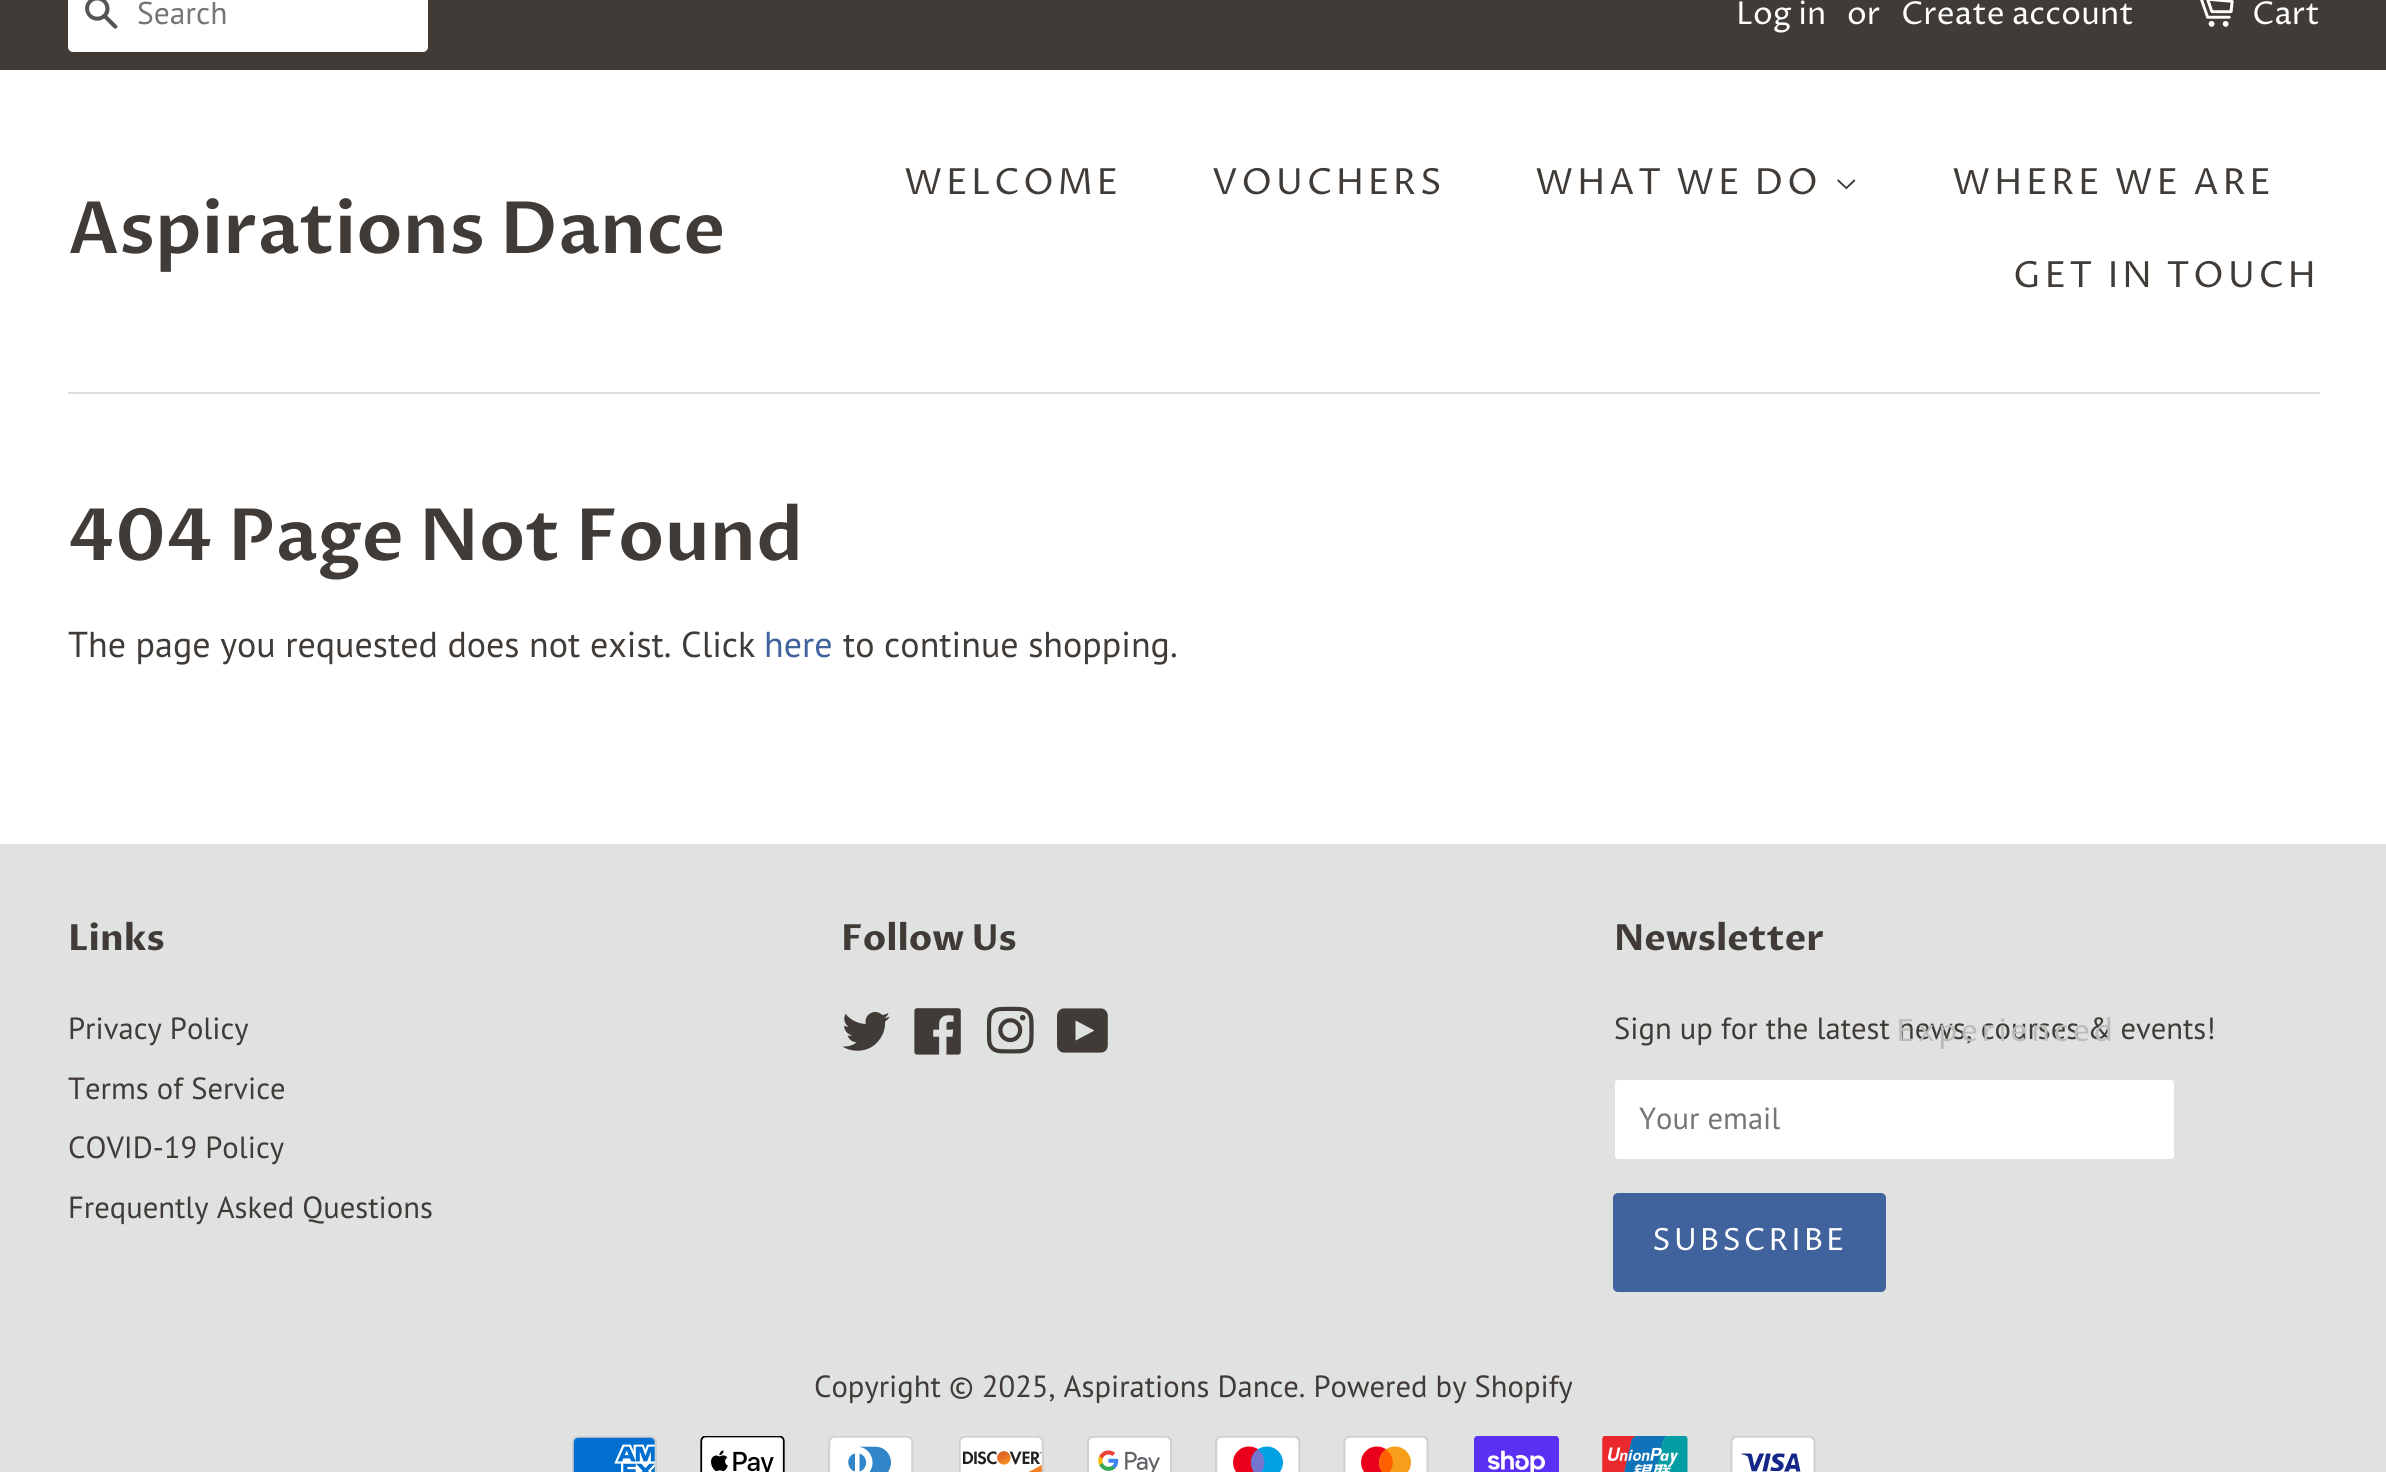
#include <cairo/cairo.h>
#include <math.h>
#include <stddef.h>

typedef struct { double x, y; const char *s; } line_t;
static cairo_t *cr;

static void rgb(unsigned color)
{
	cairo_set_source_rgb(cr, (color >> 16) / 255.0, (color >> 8 & 255) / 255.0, (color & 255) / 255.0);
}

static void tracked(double x, double y, const char *s, double letter, double word)
{
	cairo_move_to(cr, x, y);
	while (*s) {
		char ch[5] = {0};
		int n = 0;
		do ch[n++] = *s++; while ((*s & 0xC0) == 0x80);
		cairo_show_text(cr, ch);
		cairo_rel_move_to(cr, letter + word * (*ch == ' '), 0);
	}
}

static void rrect(double x, double y, double w, double h, double r)
{
	cairo_new_sub_path(cr);
	cairo_arc(cr, x + w - r, y + h - r, r, 0, M_PI / 2);
	cairo_arc(cr, x + r, y + h - r, r, M_PI / 2, M_PI);
	cairo_arc(cr, x + r, y + r, r, M_PI, 1.5 * M_PI);
	cairo_arc(cr, x + w - r, y + r, r, 1.5 * M_PI, 2 * M_PI);
	cairo_close_path(cr);
}

static void image(const char *path, double x, double y, double w, double h)
{
	cairo_surface_t *image = cairo_image_surface_create_from_png(path);
	cairo_save(cr);
	cairo_set_source_surface(cr, image, x, y);
	cairo_rectangle(cr, x, y, w, h);
	cairo_fill(cr);
	cairo_restore(cr);
	cairo_surface_destroy(image);
}

int main(void) {
	cairo_surface_t *surface = cairo_image_surface_create(CAIRO_FORMAT_RGB24, 2386, 1472);
	cr = cairo_create(surface);
	cairo_font_options_t *options = cairo_font_options_create();
	cairo_font_options_set_hint_metrics(options, CAIRO_HINT_METRICS_OFF);
	cairo_font_options_set_hint_style(options, CAIRO_HINT_STYLE_NONE);
	cairo_set_font_options(cr, options);
	cairo_set_miter_limit(cr, 4);
	rgb(0xffffff);
	cairo_paint(cr);
	rgb(0x403b37);
	cairo_rectangle(cr, 0, 0, 2386, 70);
	cairo_fill(cr);
	rgb(0xffffff);
	rrect(68, -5, 360, 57, 5);
	cairo_fill(cr);
	image("img/1.png", 85, 0, 33, 29);
	image("img/2.png", 2200, 0, 34, 27);
	rgb(0xdddddd);
	cairo_rectangle(cr, 68, 392, 2252, 2);
	cairo_fill(cr);
	image("img/3.png", 1837, 179, 19, 11);
	rgb(0xe0e1e1);
	cairo_rectangle(cr, 0, 844, 2386, 628);
	cairo_fill(cr);
	image("img/4.png", 842, 1012, 48, 39);
	image("img/5.png", 914, 1008, 47, 47);
	image("img/6.png", 986, 1006, 48, 48);
	image("img/7.png", 1057, 1008, 51, 45);
	rgb(0xffffff);
	rrect(1613, 1078, 563, 83, 5);
	cairo_fill(cr);
	rrect(1614, 1079, 561, 81, 4);
	cairo_set_source_rgba(cr, 0.251, 0.231, 0.216, 0.15);
	cairo_stroke(cr);
	rgb(0x40639d);
	rrect(1613, 1193, 273, 99, 5);
	cairo_fill(cr);
	image("img/8.png", 572, 1436, 85, 36);
	image("img/9.png", 700, 1436, 85, 36);
	image("img/10.png", 828, 1436, 86, 36);
	image("img/11.png", 959, 1436, 85, 36);
	image("img/12.png", 1087, 1436, 85, 36);
	image("img/13.png", 1215, 1436, 86, 36);
	image("img/14.png", 1343, 1436, 86, 36);
	image("img/15.png", 1474, 1436, 85, 36);
	image("img/16.png", 1602, 1436, 86, 36);
	image("img/17.png", 1730, 1436, 86, 36);
	cairo_select_font_face(cr, "PT Sans", CAIRO_FONT_SLANT_NORMAL, CAIRO_FONT_WEIGHT_NORMAL);
	cairo_set_font_size(cr, 31.5);
	rgb(0x757575);
	cairo_move_to(cr, 137, 24);
	cairo_show_text(cr, "Search");
	cairo_select_font_face(cr, "Proza Libre", CAIRO_FONT_SLANT_NORMAL, CAIRO_FONT_WEIGHT_NORMAL);
	rgb(0xffffff);
	{
		static const line_t items[] = {
			{1736, 24, "Log in"},
			{1847, 24, "or"},
			{1901, 24, "Create account"},
			{2252, 24, "Cart"},
		};
		for (size_t i = 0; i < sizeof items / sizeof *items; i++) {
			cairo_move_to(cr, items[i].x, items[i].y);
			cairo_show_text(cr, items[i].s);
		}
	}
	cairo_select_font_face(cr, "Proza Libre SemiBold", CAIRO_FONT_SLANT_NORMAL, CAIRO_FONT_WEIGHT_NORMAL);
	cairo_set_font_size(cr, 72);
	rgb(0x403b37);
	cairo_move_to(cr, 68, 253);
	cairo_show_text(cr, "Aspirations Dance");
	cairo_select_font_face(cr, "Proza Libre", CAIRO_FONT_SLANT_NORMAL, CAIRO_FONT_WEIGHT_NORMAL);
	cairo_set_font_size(cr, 36);
	{
		static const line_t items[] = {
			{904, 194, "WELCOME"},
			{1212, 194, "VOUCHERS"},
			{1535, 194, "WHAT WE DO"},
			{1952, 194, "WHERE WE ARE"},
			{2013, 287, "GET IN TOUCH"},
		};
		for (size_t i = 0; i < sizeof items / sizeof *items; i++) {
			tracked(items[i].x, items[i].y, items[i].s, 3.6, 0);
		}
	}
	cairo_select_font_face(cr, "Proza Libre SemiBold", CAIRO_FONT_SLANT_NORMAL, CAIRO_FONT_WEIGHT_NORMAL);
	cairo_set_font_size(cr, 72);
	cairo_move_to(cr, 68, 560);
	cairo_show_text(cr, "404 Page Not Found");
	cairo_select_font_face(cr, "PT Sans", CAIRO_FONT_SLANT_NORMAL, CAIRO_FONT_WEIGHT_NORMAL);
	cairo_set_font_size(cr, 36);
	cairo_move_to(cr, 68, 657);
	cairo_show_text(cr, "The page you requested does not exist. Click");
	rgb(0x40639d);
	cairo_move_to(cr, 764, 657);
	cairo_show_text(cr, "here");
	rgb(0x403b37);
	cairo_move_to(cr, 843, 657);
	cairo_show_text(cr, "to continue shopping.");
	cairo_select_font_face(cr, "Proza Libre", CAIRO_FONT_SLANT_NORMAL, CAIRO_FONT_WEIGHT_BOLD);
	cairo_move_to(cr, 68, 950);
	cairo_show_text(cr, "Links");
	cairo_select_font_face(cr, "PT Sans", CAIRO_FONT_SLANT_NORMAL, CAIRO_FONT_WEIGHT_NORMAL);
	cairo_set_font_size(cr, 30.6);
	{
		static const line_t items[] = {
			{68, 1039, "Privacy Policy"},
			{68, 1099, "Terms of Service"},
			{68, 1158, "COVID-19 Policy"},
			{68, 1218, "Frequently Asked Questions"},
		};
		for (size_t i = 0; i < sizeof items / sizeof *items; i++) {
			cairo_move_to(cr, items[i].x, items[i].y);
			cairo_show_text(cr, items[i].s);
		}
	}
	cairo_select_font_face(cr, "Proza Libre", CAIRO_FONT_SLANT_NORMAL, CAIRO_FONT_WEIGHT_BOLD);
	cairo_set_font_size(cr, 36);
	cairo_move_to(cr, 841, 950);
	cairo_show_text(cr, "Follow Us");
	cairo_move_to(cr, 1614, 950);
	cairo_show_text(cr, "Newsletter");
	cairo_select_font_face(cr, "PT Sans", CAIRO_FONT_SLANT_NORMAL, CAIRO_FONT_WEIGHT_NORMAL);
	cairo_set_font_size(cr, 30.6);
	cairo_move_to(cr, 1614, 1039);
	cairo_show_text(cr, "Sign up for the latest news, courses & events!");
	cairo_select_font_face(cr, "Proza Libre", CAIRO_FONT_SLANT_NORMAL, CAIRO_FONT_WEIGHT_NORMAL);
	rgb(0xbcbcbb);
	tracked(1896, 1041, "Experienced", 3.6, 0);
	cairo_select_font_face(cr, "PT Sans", CAIRO_FONT_SLANT_NORMAL, CAIRO_FONT_WEIGHT_NORMAL);
	rgb(0x757575);
	cairo_move_to(cr, 1639, 1129);
	cairo_show_text(cr, "Your email");
	cairo_select_font_face(cr, "Proza Libre", CAIRO_FONT_SLANT_NORMAL, CAIRO_FONT_WEIGHT_NORMAL);
	rgb(0xffffff);
	tracked(1652, 1250, "SUBSCRIBE", 3, 0);
	cairo_select_font_face(cr, "PT Sans", CAIRO_FONT_SLANT_NORMAL, CAIRO_FONT_WEIGHT_NORMAL);
	rgb(0x403b37);
	cairo_move_to(cr, 814, 1397);
	cairo_show_text(cr, "Copyright © 2025, Aspirations Dance. Powered by Shopify");
	cairo_surface_write_to_png(surface, "page.png");
	cairo_font_options_destroy(options);
	cairo_destroy(cr);
	cairo_surface_destroy(surface);
	return 0;
}
